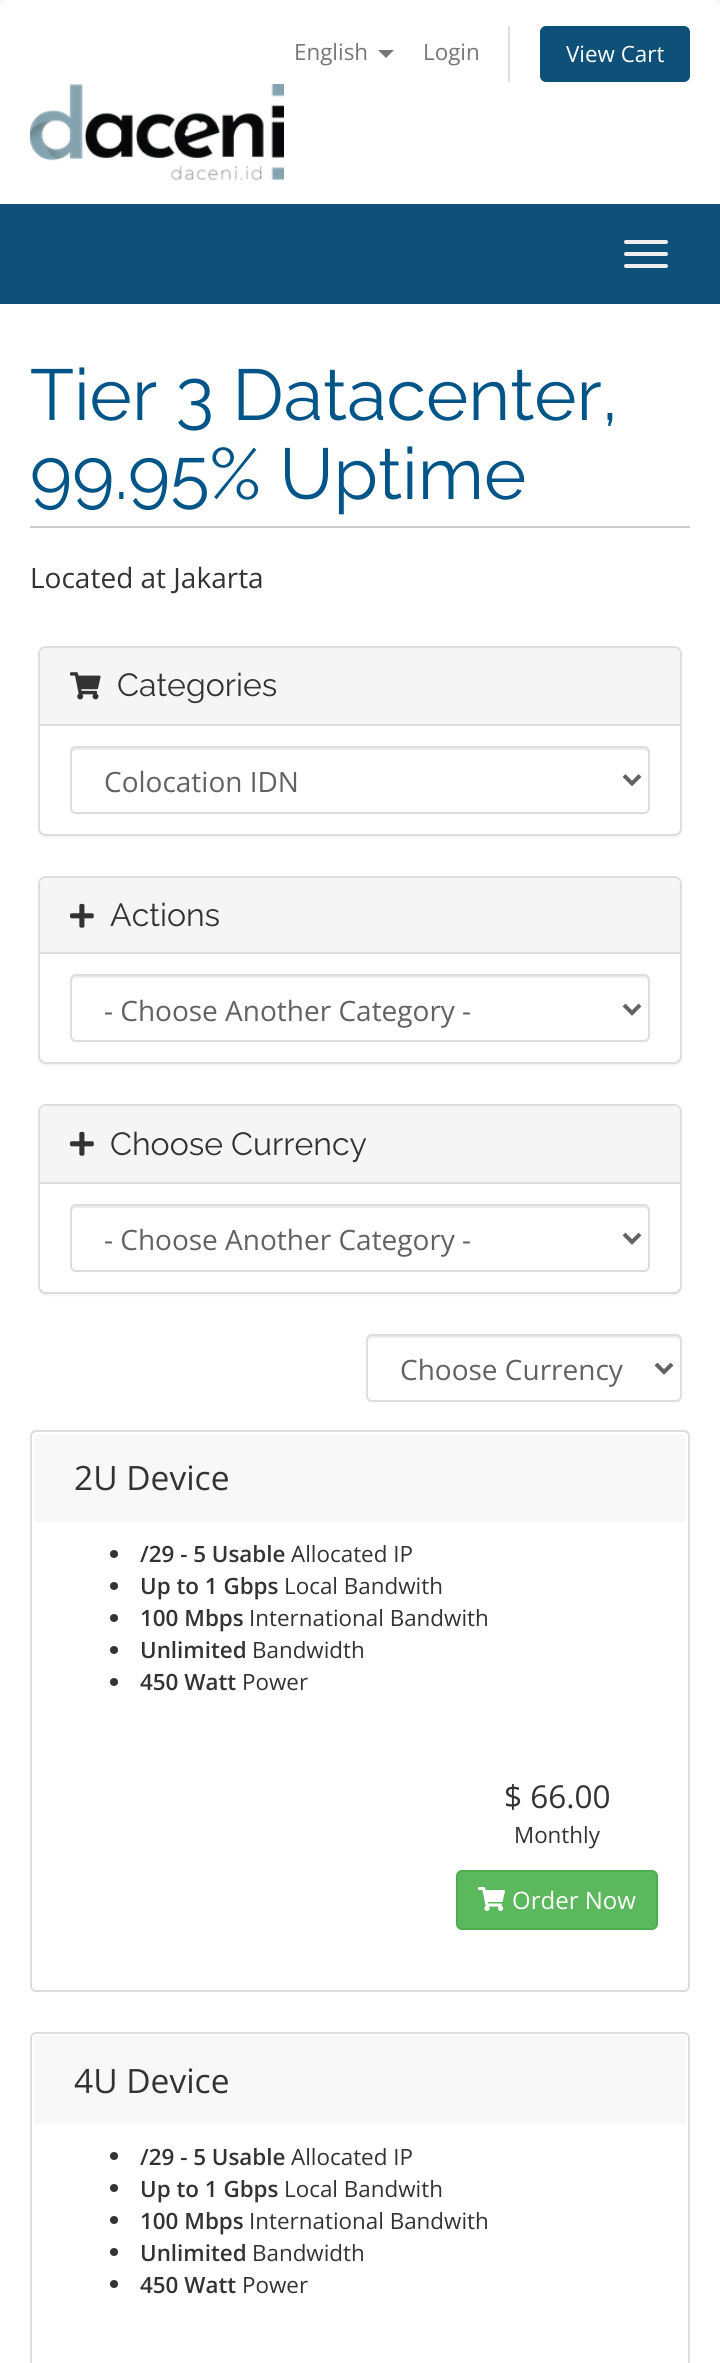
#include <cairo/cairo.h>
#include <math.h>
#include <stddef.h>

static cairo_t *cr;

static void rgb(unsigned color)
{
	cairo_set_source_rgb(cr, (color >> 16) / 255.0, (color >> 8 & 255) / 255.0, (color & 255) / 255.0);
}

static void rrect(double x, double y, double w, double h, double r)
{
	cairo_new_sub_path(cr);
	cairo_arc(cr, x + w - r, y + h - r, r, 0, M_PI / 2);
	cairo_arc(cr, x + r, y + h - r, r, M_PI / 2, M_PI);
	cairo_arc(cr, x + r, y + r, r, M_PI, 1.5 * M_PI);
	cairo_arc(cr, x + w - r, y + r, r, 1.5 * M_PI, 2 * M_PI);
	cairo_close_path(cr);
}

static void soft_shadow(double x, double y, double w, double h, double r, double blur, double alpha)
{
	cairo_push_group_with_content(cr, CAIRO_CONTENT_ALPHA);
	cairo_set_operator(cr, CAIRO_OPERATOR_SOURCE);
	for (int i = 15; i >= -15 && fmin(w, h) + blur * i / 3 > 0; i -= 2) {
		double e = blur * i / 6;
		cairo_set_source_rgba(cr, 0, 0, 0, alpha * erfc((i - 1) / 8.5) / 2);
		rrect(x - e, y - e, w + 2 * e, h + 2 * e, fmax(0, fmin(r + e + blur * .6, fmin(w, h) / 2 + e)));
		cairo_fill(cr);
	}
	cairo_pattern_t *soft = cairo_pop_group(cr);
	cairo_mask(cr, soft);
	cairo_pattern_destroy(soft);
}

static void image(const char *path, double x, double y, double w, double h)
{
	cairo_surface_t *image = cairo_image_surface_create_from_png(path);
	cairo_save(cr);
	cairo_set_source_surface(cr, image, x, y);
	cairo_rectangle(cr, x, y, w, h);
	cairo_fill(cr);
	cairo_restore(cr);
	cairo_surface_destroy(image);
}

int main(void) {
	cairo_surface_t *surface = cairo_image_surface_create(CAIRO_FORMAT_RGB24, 720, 2363);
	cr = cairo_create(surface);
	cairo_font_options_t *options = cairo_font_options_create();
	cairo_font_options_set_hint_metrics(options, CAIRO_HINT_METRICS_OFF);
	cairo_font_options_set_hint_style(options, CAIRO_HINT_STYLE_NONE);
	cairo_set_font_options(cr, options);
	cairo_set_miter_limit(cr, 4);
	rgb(0xf8f8f8);
	cairo_paint(cr);
	rgb(0xffffff);
	cairo_new_path(cr);
	cairo_move_to(cr, 10, 0);
	cairo_line_to(cr, 710, 0);
	cairo_curve_to(cr, 715.5, 0, 720, 4.5, 720, 10);
	cairo_line_to(cr, 720, 204);
	cairo_line_to(cr, 0, 204);
	cairo_line_to(cr, 0, 10);
	cairo_curve_to(cr, 0, 4.5, 4.5, 0, 10, 0);
	cairo_close_path(cr);
	cairo_fill(cr);
	rgb(0x777777);
	cairo_new_path(cr);
	cairo_move_to(cr, 378, 50);
	cairo_line_to(cr, 394, 50);
	cairo_line_to(cr, 386, 58);
	cairo_close_path(cr);
	cairo_fill(cr);
	rgb(0xdddddd);
	cairo_rectangle(cr, 508, 26, 2, 56);
	cairo_fill(cr);
	rgb(0x0e5077);
	rrect(540, 26, 150, 56, 6);
	cairo_fill(cr);
	image("img/1.png", 30, 84, 254, 97);
	cairo_rectangle(cr, 0, 204, 720, 100);
	cairo_fill(cr);
	rgb(0xeeeeee);
	rrect(624, 240, 44, 4, 2);
	cairo_fill(cr);
	rrect(624, 252, 44, 4, 2);
	cairo_fill(cr);
	rrect(624, 264, 44, 4, 2);
	cairo_fill(cr);
	rgb(0xffffff);
	cairo_rectangle(cr, 0, 304, 720, 2059);
	cairo_fill(cr);
	rgb(0xcccccc);
	cairo_rectangle(cr, 30, 526, 660, 2);
	cairo_fill(cr);
	rgb(0x000000);
	soft_shadow(38, 648, 644, 190, 8, 1, 0.05);
	rgb(0xffffff);
	rrect(39, 647, 642, 188, 7);
	cairo_fill_preserve(cr);
	rgb(0xdddddd);
	cairo_stroke(cr);
	rgb(0xf5f5f5);
	cairo_new_path(cr);
	cairo_move_to(cr, 46, 648);
	cairo_line_to(cr, 674, 648);
	cairo_curve_to(cr, 677.5, 648, 680, 650.5, 680, 654);
	cairo_line_to(cr, 680, 726);
	cairo_line_to(cr, 40, 726);
	cairo_line_to(cr, 40, 654);
	cairo_curve_to(cr, 40, 650.5, 42.5, 648, 46, 648);
	cairo_close_path(cr);
	cairo_fill(cr);
	rgb(0xdddddd);
	cairo_rectangle(cr, 40, 724, 640, 2);
	cairo_fill(cr);
	image("img/2.png", 70, 672, 31, 28);
	rgb(0xececec);
	cairo_new_path(cr);
	cairo_move_to(cr, 76, 750);
	cairo_line_to(cr, 644, 750);
	cairo_curve_to(cr, 646, 750, 648, 752, 648, 754);
	cairo_line_to(cr, 648, 752);
	cairo_curve_to(cr, 648, 750, 646, 748, 644, 748);
	cairo_line_to(cr, 76, 748);
	cairo_curve_to(cr, 74, 748, 72, 750, 72, 752);
	cairo_line_to(cr, 72, 754);
	cairo_curve_to(cr, 72, 752, 74, 750, 76, 750);
	cairo_close_path(cr);
	cairo_fill(cr);
	rrect(71, 747, 578, 66, 5);
	rgb(0xdddddd);
	cairo_stroke(cr);
	cairo_new_path(cr);
	cairo_move_to(cr, 624, 775.5);
	cairo_line_to(cr, 632, 783.5);
	cairo_line_to(cr, 640, 775.5);
	rgb(0x626262);
	cairo_set_line_width(cr, 4);
	cairo_stroke(cr);
	rgb(0x000000);
	soft_shadow(38, 878, 644, 188, 8, 1, 0.05);
	rgb(0xffffff);
	rrect(39, 877, 642, 186, 7);
	cairo_fill_preserve(cr);
	rgb(0xdddddd);
	cairo_set_line_width(cr, 2);
	cairo_stroke(cr);
	rgb(0xf5f5f5);
	cairo_new_path(cr);
	cairo_move_to(cr, 46, 878);
	cairo_line_to(cr, 674, 878);
	cairo_curve_to(cr, 677.5, 878, 680, 880.5, 680, 884);
	cairo_line_to(cr, 680, 954);
	cairo_line_to(cr, 40, 954);
	cairo_line_to(cr, 40, 884);
	cairo_curve_to(cr, 40, 880.5, 42.5, 878, 46, 878);
	cairo_close_path(cr);
	cairo_fill(cr);
	rgb(0xdddddd);
	cairo_rectangle(cr, 40, 952, 640, 2);
	cairo_fill(cr);
	image("img/3.png", 70, 903, 24, 25);
	rgb(0xececec);
	cairo_new_path(cr);
	cairo_move_to(cr, 76, 978);
	cairo_line_to(cr, 644, 978);
	cairo_curve_to(cr, 646, 978, 648, 980, 648, 982);
	cairo_line_to(cr, 648, 980);
	cairo_curve_to(cr, 648, 978, 646, 976, 644, 976);
	cairo_line_to(cr, 76, 976);
	cairo_curve_to(cr, 74, 976, 72, 978, 72, 980);
	cairo_line_to(cr, 72, 982);
	cairo_curve_to(cr, 72, 980, 74, 978, 76, 978);
	cairo_close_path(cr);
	cairo_fill(cr);
	rrect(71, 975, 578, 66, 5);
	rgb(0xdddddd);
	cairo_stroke(cr);
	cairo_new_path(cr);
	cairo_move_to(cr, 624, 1005);
	cairo_line_to(cr, 632, 1013);
	cairo_line_to(cr, 640, 1005);
	rgb(0x626262);
	cairo_set_line_width(cr, 4);
	cairo_stroke(cr);
	rgb(0x000000);
	soft_shadow(38, 1106, 644, 190, 8, 1, 0.05);
	rgb(0xffffff);
	rrect(39, 1105, 642, 188, 7);
	cairo_fill_preserve(cr);
	rgb(0xdddddd);
	cairo_set_line_width(cr, 2);
	cairo_stroke(cr);
	rgb(0xf5f5f5);
	cairo_new_path(cr);
	cairo_move_to(cr, 46, 1106);
	cairo_line_to(cr, 674, 1106);
	cairo_curve_to(cr, 677.5, 1106, 680, 1108.5, 680, 1112);
	cairo_line_to(cr, 680, 1184);
	cairo_line_to(cr, 40, 1184);
	cairo_line_to(cr, 40, 1112);
	cairo_curve_to(cr, 40, 1108.5, 42.5, 1106, 46, 1106);
	cairo_close_path(cr);
	cairo_fill(cr);
	rgb(0xdddddd);
	cairo_rectangle(cr, 40, 1182, 640, 2);
	cairo_fill(cr);
	image("img/3.png", 70, 1131, 24, 25);
	rgb(0xececec);
	cairo_new_path(cr);
	cairo_move_to(cr, 76, 1208);
	cairo_line_to(cr, 644, 1208);
	cairo_curve_to(cr, 646, 1208, 648, 1210, 648, 1212);
	cairo_line_to(cr, 648, 1210);
	cairo_curve_to(cr, 648, 1208, 646, 1206, 644, 1206);
	cairo_line_to(cr, 76, 1206);
	cairo_curve_to(cr, 74, 1206, 72, 1208, 72, 1210);
	cairo_line_to(cr, 72, 1212);
	cairo_curve_to(cr, 72, 1210, 74, 1208, 76, 1208);
	cairo_close_path(cr);
	cairo_fill(cr);
	rrect(71, 1205, 578, 66, 5);
	rgb(0xdddddd);
	cairo_stroke(cr);
	cairo_new_path(cr);
	cairo_move_to(cr, 624, 1234);
	cairo_line_to(cr, 632, 1242);
	cairo_line_to(cr, 640, 1234);
	rgb(0x626262);
	cairo_set_line_width(cr, 4);
	cairo_stroke(cr);
	rgb(0xececec);
	cairo_new_path(cr);
	cairo_move_to(cr, 372, 1338);
	cairo_line_to(cr, 676, 1338);
	cairo_curve_to(cr, 678, 1338, 680, 1340, 680, 1342);
	cairo_curve_to(cr, 680, 1339, 680, 1336, 676, 1336);
	cairo_line_to(cr, 372, 1336);
	cairo_curve_to(cr, 368, 1336, 368, 1339, 368, 1342);
	cairo_curve_to(cr, 368, 1340, 370, 1338, 372, 1338);
	cairo_close_path(cr);
	cairo_fill(cr);
	rrect(367, 1335, 314, 66, 5);
	rgb(0xdddddd);
	cairo_set_line_width(cr, 2);
	cairo_stroke(cr);
	cairo_new_path(cr);
	cairo_move_to(cr, 656, 1364);
	cairo_line_to(cr, 664, 1372);
	cairo_line_to(cr, 672, 1364);
	rgb(0x626262);
	cairo_set_line_width(cr, 4);
	cairo_stroke(cr);
	rrect(31, 1431, 658, 560, 5);
	rgb(0xdddddd);
	cairo_set_line_width(cr, 2);
	cairo_stroke(cr);
	rgb(0xf8f8f8);
	cairo_new_path(cr);
	cairo_move_to(cr, 40, 1434);
	cairo_line_to(cr, 680, 1434);
	cairo_curve_to(cr, 683.5, 1434, 686, 1436.5, 686, 1440);
	cairo_line_to(cr, 686, 1522);
	cairo_line_to(cr, 34, 1522);
	cairo_line_to(cr, 34, 1440);
	cairo_curve_to(cr, 34, 1436.5, 36.5, 1434, 40, 1434);
	cairo_close_path(cr);
	cairo_fill(cr);
	rgb(0x333333);
	cairo_arc(cr, 114, 1554, 4, 0, 2 * M_PI);
	cairo_fill(cr);
	cairo_arc(cr, 114, 1586, 4, 0, 2 * M_PI);
	cairo_fill(cr);
	cairo_arc(cr, 114, 1618, 4, 0, 2 * M_PI);
	cairo_fill(cr);
	cairo_arc(cr, 114, 1650, 4, 0, 2 * M_PI);
	cairo_fill(cr);
	cairo_arc(cr, 114, 1682, 4, 0, 2 * M_PI);
	cairo_fill(cr);
	rgb(0x5cb85c);
	rrect(457, 1871, 200, 58, 5);
	cairo_fill_preserve(cr);
	rgb(0x4cae4c);
	cairo_stroke(cr);
	image("img/4.png", 478, 1887, 27, 24);
	rrect(31, 2033, 658, 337, 5);
	rgb(0xdddddd);
	cairo_stroke(cr);
	rgb(0xf8f8f8);
	cairo_new_path(cr);
	cairo_move_to(cr, 40, 2036);
	cairo_line_to(cr, 680, 2036);
	cairo_curve_to(cr, 683.5, 2036, 686, 2038.5, 686, 2042);
	cairo_line_to(cr, 686, 2124);
	cairo_line_to(cr, 34, 2124);
	cairo_line_to(cr, 34, 2042);
	cairo_curve_to(cr, 34, 2038.5, 36.5, 2036, 40, 2036);
	cairo_close_path(cr);
	cairo_fill(cr);
	rgb(0x333333);
	cairo_arc(cr, 114, 2156, 4, 0, 2 * M_PI);
	cairo_fill(cr);
	cairo_arc(cr, 114, 2188, 4, 0, 2 * M_PI);
	cairo_fill(cr);
	cairo_arc(cr, 114, 2220, 4, 0, 2 * M_PI);
	cairo_fill(cr);
	cairo_arc(cr, 114, 2252, 4, 0, 2 * M_PI);
	cairo_fill(cr);
	cairo_arc(cr, 114, 2284, 4, 0, 2 * M_PI);
	cairo_fill(cr);
	cairo_select_font_face(cr, "Open Sans", CAIRO_FONT_SLANT_NORMAL, CAIRO_FONT_WEIGHT_NORMAL);
	cairo_set_font_size(cr, 22.4);
	rgb(0x777777);
	cairo_move_to(cr, 294, 60);
	cairo_show_text(cr, "English");
	cairo_move_to(cr, 423, 60);
	cairo_show_text(cr, "Login");
	rgb(0xffffff);
	cairo_move_to(cr, 566, 62);
	cairo_show_text(cr, "View Cart");
	cairo_select_font_face(cr, "Raleway", CAIRO_FONT_SLANT_NORMAL, CAIRO_FONT_WEIGHT_NORMAL);
	cairo_set_font_size(cr, 72);
	rgb(0x005588);
	cairo_move_to(cr, 30, 420);
	cairo_show_text(cr, "Tier 3 Datacenter,");
	cairo_move_to(cr, 30, 499);
	cairo_show_text(cr, "99.95% Uptime");
	cairo_select_font_face(cr, "Open Sans", CAIRO_FONT_SLANT_NORMAL, CAIRO_FONT_WEIGHT_NORMAL);
	cairo_set_font_size(cr, 28);
	rgb(0x333333);
	cairo_move_to(cr, 30, 588);
	cairo_show_text(cr, "Located at Jakarta");
	cairo_select_font_face(cr, "Raleway", CAIRO_FONT_SLANT_NORMAL, CAIRO_FONT_WEIGHT_NORMAL);
	cairo_set_font_size(cr, 32);
	cairo_move_to(cr, 117, 696);
	cairo_show_text(cr, "Categories");
	cairo_select_font_face(cr, "Open Sans", CAIRO_FONT_SLANT_NORMAL, CAIRO_FONT_WEIGHT_NORMAL);
	cairo_set_font_size(cr, 28);
	rgb(0x626262);
	cairo_move_to(cr, 104, 792);
	cairo_show_text(cr, "Colocation IDN");
	cairo_select_font_face(cr, "Raleway", CAIRO_FONT_SLANT_NORMAL, CAIRO_FONT_WEIGHT_NORMAL);
	cairo_set_font_size(cr, 32);
	rgb(0x333333);
	cairo_move_to(cr, 110, 926);
	cairo_show_text(cr, "Actions");
	cairo_select_font_face(cr, "Open Sans", CAIRO_FONT_SLANT_NORMAL, CAIRO_FONT_WEIGHT_NORMAL);
	cairo_set_font_size(cr, 28);
	rgb(0x626262);
	cairo_move_to(cr, 104, 1021);
	cairo_show_text(cr, "- Choose Another Category -");
	cairo_select_font_face(cr, "Raleway", CAIRO_FONT_SLANT_NORMAL, CAIRO_FONT_WEIGHT_NORMAL);
	cairo_set_font_size(cr, 32);
	rgb(0x333333);
	cairo_move_to(cr, 110, 1155);
	cairo_show_text(cr, "Choose Currency");
	cairo_select_font_face(cr, "Open Sans", CAIRO_FONT_SLANT_NORMAL, CAIRO_FONT_WEIGHT_NORMAL);
	cairo_set_font_size(cr, 28);
	rgb(0x626262);
	cairo_move_to(cr, 104, 1250);
	cairo_show_text(cr, "- Choose Another Category -");
	cairo_move_to(cr, 400, 1380);
	cairo_show_text(cr, "Choose Currency");
	cairo_set_font_size(cr, 33.5);
	rgb(0x333333);
	cairo_move_to(cr, 74, 1490);
	cairo_show_text(cr, "2U Device");
	cairo_select_font_face(cr, "Open Sans SemiBold", CAIRO_FONT_SLANT_NORMAL, CAIRO_FONT_WEIGHT_NORMAL);
	cairo_set_font_size(cr, 22.4);
	cairo_move_to(cr, 140, 1562);
	cairo_show_text(cr, "/29 - 5 Usable");
	cairo_select_font_face(cr, "Open Sans", CAIRO_FONT_SLANT_NORMAL, CAIRO_FONT_WEIGHT_NORMAL);
	cairo_move_to(cr, 291, 1562);
	cairo_show_text(cr, "Allocated IP");
	cairo_select_font_face(cr, "Open Sans SemiBold", CAIRO_FONT_SLANT_NORMAL, CAIRO_FONT_WEIGHT_NORMAL);
	cairo_move_to(cr, 140, 1594);
	cairo_show_text(cr, "Up to 1 Gbps");
	cairo_select_font_face(cr, "Open Sans", CAIRO_FONT_SLANT_NORMAL, CAIRO_FONT_WEIGHT_NORMAL);
	cairo_move_to(cr, 284, 1594);
	cairo_show_text(cr, "Local Bandwith");
	cairo_select_font_face(cr, "Open Sans SemiBold", CAIRO_FONT_SLANT_NORMAL, CAIRO_FONT_WEIGHT_NORMAL);
	cairo_move_to(cr, 140, 1626);
	cairo_show_text(cr, "100 Mbps");
	cairo_select_font_face(cr, "Open Sans", CAIRO_FONT_SLANT_NORMAL, CAIRO_FONT_WEIGHT_NORMAL);
	cairo_move_to(cr, 249, 1626);
	cairo_show_text(cr, "International Bandwith");
	cairo_select_font_face(cr, "Open Sans SemiBold", CAIRO_FONT_SLANT_NORMAL, CAIRO_FONT_WEIGHT_NORMAL);
	cairo_move_to(cr, 140, 1658);
	cairo_show_text(cr, "Unlimited");
	cairo_select_font_face(cr, "Open Sans", CAIRO_FONT_SLANT_NORMAL, CAIRO_FONT_WEIGHT_NORMAL);
	cairo_move_to(cr, 252, 1658);
	cairo_show_text(cr, "Bandwidth");
	cairo_select_font_face(cr, "Open Sans SemiBold", CAIRO_FONT_SLANT_NORMAL, CAIRO_FONT_WEIGHT_NORMAL);
	cairo_move_to(cr, 140, 1690);
	cairo_show_text(cr, "450 Watt");
	cairo_select_font_face(cr, "Open Sans", CAIRO_FONT_SLANT_NORMAL, CAIRO_FONT_WEIGHT_NORMAL);
	cairo_move_to(cr, 242, 1690);
	cairo_show_text(cr, "Power");
	cairo_set_font_size(cr, 31.5);
	cairo_move_to(cr, 504, 1808);
	cairo_show_text(cr, "$ 66.00");
	cairo_set_font_size(cr, 22.4);
	cairo_move_to(cr, 514, 1843);
	cairo_show_text(cr, "Monthly");
	cairo_set_font_size(cr, 24);
	rgb(0xffffff);
	cairo_move_to(cr, 512, 1909);
	cairo_show_text(cr, "Order Now");
	cairo_set_font_size(cr, 33.5);
	rgb(0x333333);
	cairo_move_to(cr, 74, 2093);
	cairo_show_text(cr, "4U Device");
	cairo_select_font_face(cr, "Open Sans SemiBold", CAIRO_FONT_SLANT_NORMAL, CAIRO_FONT_WEIGHT_NORMAL);
	cairo_set_font_size(cr, 22.4);
	cairo_move_to(cr, 140, 2165);
	cairo_show_text(cr, "/29 - 5 Usable");
	cairo_select_font_face(cr, "Open Sans", CAIRO_FONT_SLANT_NORMAL, CAIRO_FONT_WEIGHT_NORMAL);
	cairo_move_to(cr, 291, 2165);
	cairo_show_text(cr, "Allocated IP");
	cairo_select_font_face(cr, "Open Sans SemiBold", CAIRO_FONT_SLANT_NORMAL, CAIRO_FONT_WEIGHT_NORMAL);
	cairo_move_to(cr, 140, 2197);
	cairo_show_text(cr, "Up to 1 Gbps");
	cairo_select_font_face(cr, "Open Sans", CAIRO_FONT_SLANT_NORMAL, CAIRO_FONT_WEIGHT_NORMAL);
	cairo_move_to(cr, 284, 2197);
	cairo_show_text(cr, "Local Bandwith");
	cairo_select_font_face(cr, "Open Sans SemiBold", CAIRO_FONT_SLANT_NORMAL, CAIRO_FONT_WEIGHT_NORMAL);
	cairo_move_to(cr, 140, 2229);
	cairo_show_text(cr, "100 Mbps");
	cairo_select_font_face(cr, "Open Sans", CAIRO_FONT_SLANT_NORMAL, CAIRO_FONT_WEIGHT_NORMAL);
	cairo_move_to(cr, 249, 2229);
	cairo_show_text(cr, "International Bandwith");
	cairo_select_font_face(cr, "Open Sans SemiBold", CAIRO_FONT_SLANT_NORMAL, CAIRO_FONT_WEIGHT_NORMAL);
	cairo_move_to(cr, 140, 2261);
	cairo_show_text(cr, "Unlimited");
	cairo_select_font_face(cr, "Open Sans", CAIRO_FONT_SLANT_NORMAL, CAIRO_FONT_WEIGHT_NORMAL);
	cairo_move_to(cr, 252, 2261);
	cairo_show_text(cr, "Bandwidth");
	cairo_select_font_face(cr, "Open Sans SemiBold", CAIRO_FONT_SLANT_NORMAL, CAIRO_FONT_WEIGHT_NORMAL);
	cairo_move_to(cr, 140, 2293);
	cairo_show_text(cr, "450 Watt");
	cairo_select_font_face(cr, "Open Sans", CAIRO_FONT_SLANT_NORMAL, CAIRO_FONT_WEIGHT_NORMAL);
	cairo_move_to(cr, 242, 2293);
	cairo_show_text(cr, "Power");
	cairo_surface_write_to_png(surface, "page.png");
	cairo_font_options_destroy(options);
	cairo_destroy(cr);
	cairo_surface_destroy(surface);
	return 0;
}
